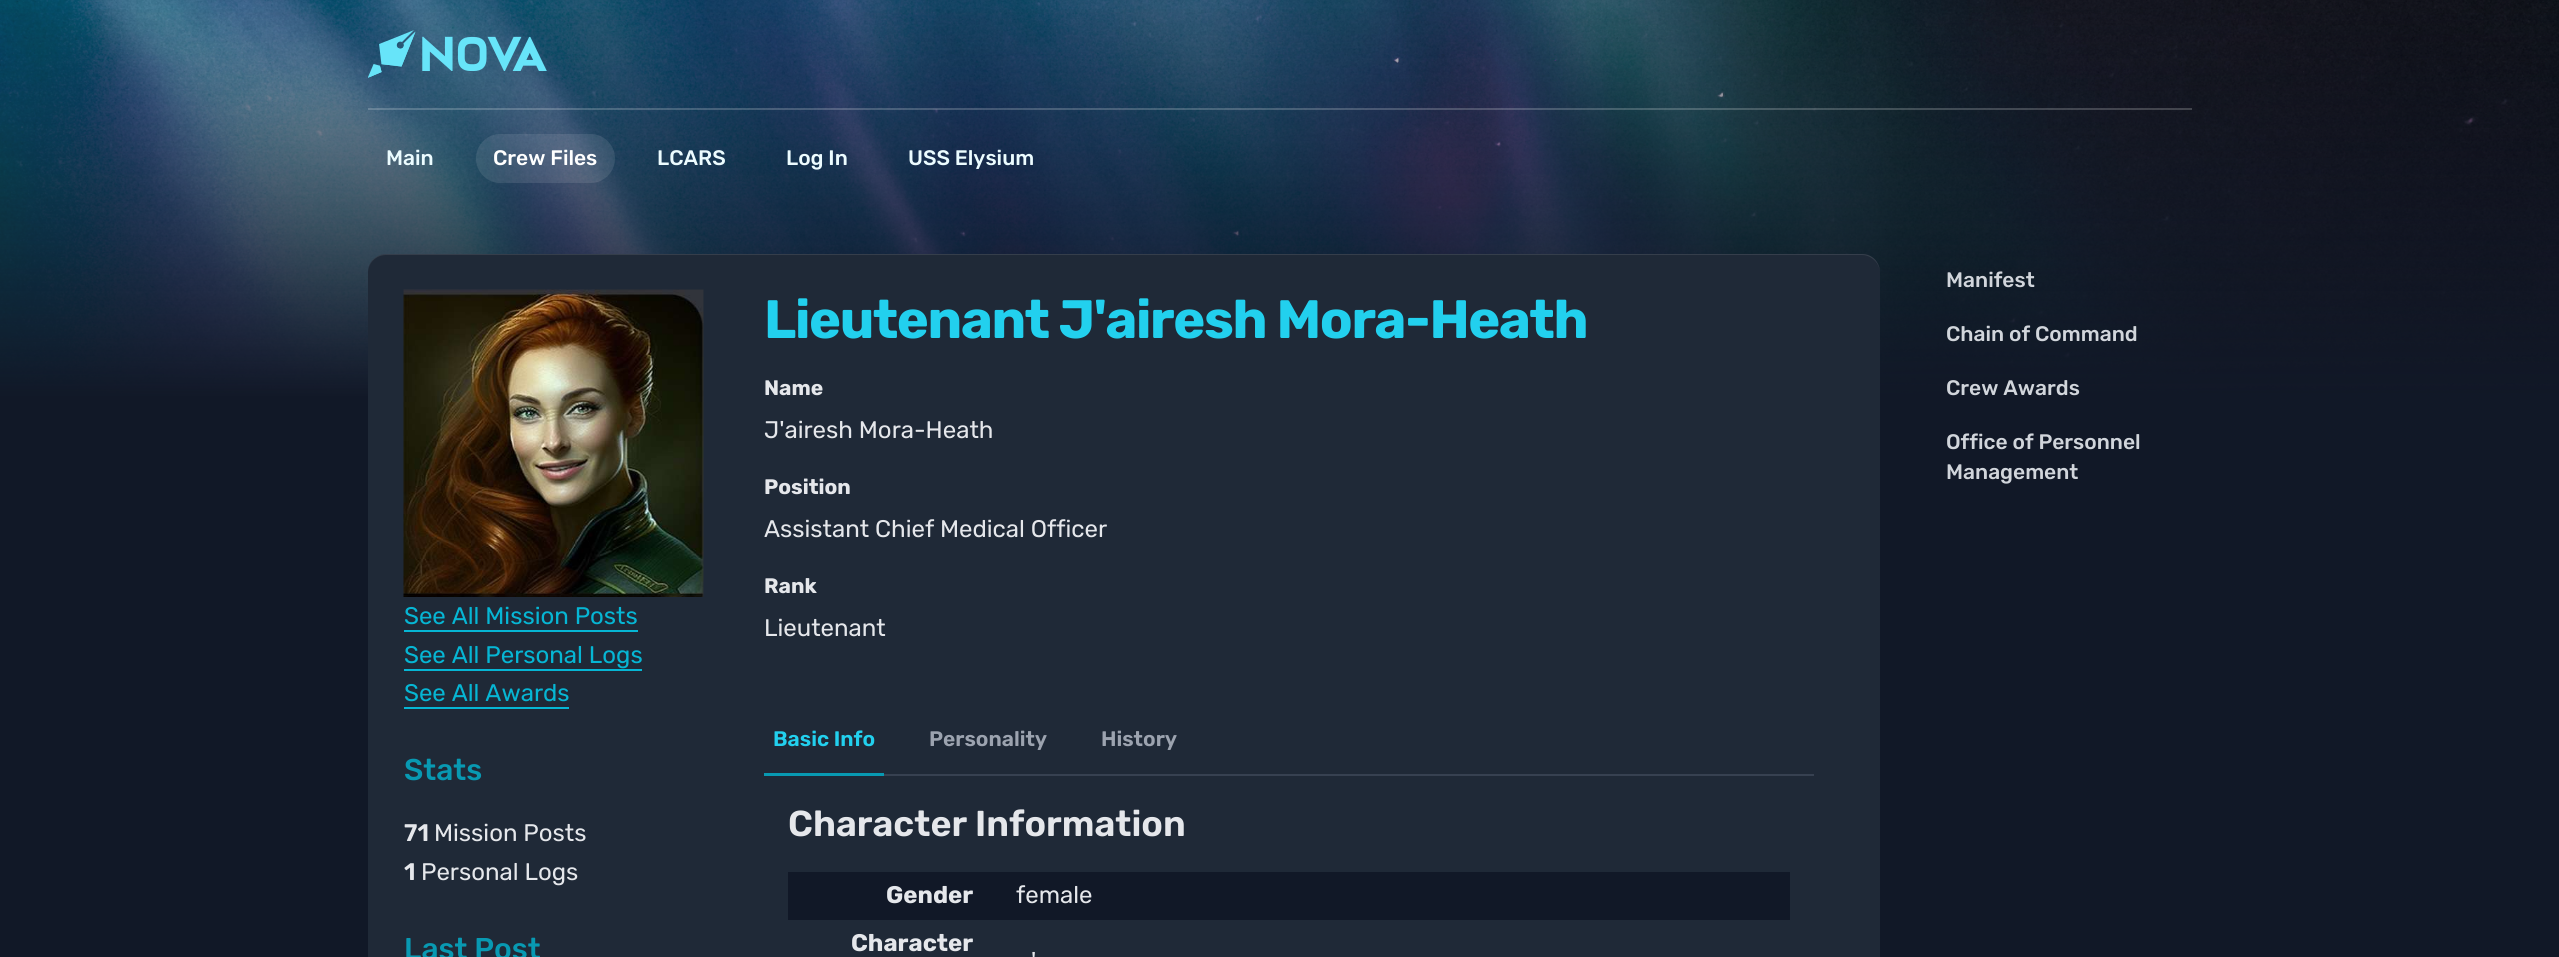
#include <cairo/cairo.h>
#include <math.h>
#include <stddef.h>

typedef struct { double x, y; const char *s; } line_t;
typedef struct { double x, y, w, h; unsigned color; } box_t;
static cairo_t *cr;

static void rgb(unsigned color)
{
	cairo_set_source_rgb(cr, (color >> 16) / 255.0, (color >> 8 & 255) / 255.0, (color & 255) / 255.0);
}

static void tracked(double x, double y, const char *s, double letter, double word)
{
	cairo_move_to(cr, x, y);
	while (*s) {
		char ch[5] = {0};
		int n = 0;
		do ch[n++] = *s++; while ((*s & 0xC0) == 0x80);
		cairo_show_text(cr, ch);
		cairo_rel_move_to(cr, letter + word * (*ch == ' '), 0);
	}
}

static void rrect(double x, double y, double w, double h, double r)
{
	cairo_new_sub_path(cr);
	cairo_arc(cr, x + w - r, y + h - r, r, 0, M_PI / 2);
	cairo_arc(cr, x + r, y + h - r, r, M_PI / 2, M_PI);
	cairo_arc(cr, x + r, y + r, r, M_PI, 1.5 * M_PI);
	cairo_arc(cr, x + w - r, y + r, r, 1.5 * M_PI, 2 * M_PI);
	cairo_close_path(cr);
}

static void image(const char *path, double x, double y, double w, double h)
{
	cairo_surface_t *image = cairo_image_surface_create_from_png(path);
	cairo_save(cr);
	cairo_set_source_surface(cr, image, x, y);
	cairo_rectangle(cr, x, y, w, h);
	cairo_fill(cr);
	cairo_restore(cr);
	cairo_surface_destroy(image);
}

int main(void) {
	cairo_surface_t *surface = cairo_image_surface_create(CAIRO_FORMAT_RGB24, 2559, 957);
	cr = cairo_create(surface);
	cairo_font_options_t *options = cairo_font_options_create();
	cairo_font_options_set_hint_metrics(options, CAIRO_HINT_METRICS_OFF);
	cairo_font_options_set_hint_style(options, CAIRO_HINT_STYLE_NONE);
	cairo_set_font_options(cr, options);
	cairo_set_miter_limit(cr, 4);
	cairo_pattern_t *gradient;
	rgb(0x111827);
	cairo_paint(cr);
	image("img/1.png", 0, 0, 2559, 396);
	gradient = cairo_pattern_create_linear(1280, 0, 1280, 398);
	cairo_pattern_add_color_stop_rgba(gradient, 0, 0.067, 0.094, 0.153, 0);
	cairo_pattern_add_color_stop_rgba(gradient, 1, 0.067, 0.094, 0.153, 1);
	cairo_set_source(cr, gradient);
	cairo_pattern_destroy(gradient);
	cairo_rectangle(cr, 0, 9, 2559, 387);
	cairo_fill(cr);
	image("img/2.png", 368, 30, 179, 48);
	cairo_set_source_rgba(cr, 1, 1, 1, 0.2);
	cairo_rectangle(cr, 368, 108, 1824, 2);
	cairo_fill(cr);
	cairo_set_source_rgba(cr, 1, 1, 1, 0.1);
	rrect(476, 134, 139, 49, 24.5);
	cairo_fill(cr);
	rgb(0x1f2937);
	rrect(368, 254, 1512, 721, 18);
	cairo_fill(cr);
	cairo_set_source_rgba(cr, 1, 1, 1, 0.1);
	cairo_new_path(cr);
	cairo_move_to(cr, 386, 255);
	cairo_line_to(cr, 1862, 255);
	cairo_curve_to(cr, 1871, 255, 1880, 263, 1880, 273);
	cairo_curve_to(cr, 1880, 263, 1873, 254, 1862, 254);
	cairo_line_to(cr, 386, 254);
	cairo_curve_to(cr, 375, 254, 368, 263, 368, 273);
	cairo_curve_to(cr, 368, 263, 376, 255, 386, 255);
	cairo_close_path(cr);
	cairo_fill(cr);
	image("img/3.png", 403, 289, 301, 308);
	{
		static const box_t items[] = {
			{404, 630, 234, 2, 0x06b6d4},
			{404, 669, 238, 2, 0x06b6d4},
			{404, 707, 165, 2, 0x06b6d4},
			{884, 774, 930, 2, 0x374151},
			{764, 773, 120, 3, 0x0899b2},
			{788, 872, 1002, 48, 0x111827},
		};
		for (size_t i = 0; i < sizeof items / sizeof *items; i++) {
			rgb(items[i].color);
			cairo_rectangle(cr, items[i].x, items[i].y, items[i].w, items[i].h);
			cairo_fill(cr);
		}
	}
	cairo_select_font_face(cr, "Rubik Medium", CAIRO_FONT_SLANT_NORMAL, CAIRO_FONT_WEIGHT_NORMAL);
	cairo_set_font_size(cr, 21);
	rgb(0xecfcff);
	cairo_move_to(cr, 386, 165);
	cairo_show_text(cr, "Main");
	rgb(0xffffff);
	cairo_move_to(cr, 493, 165);
	cairo_show_text(cr, "Crew Files");
	rgb(0xecfcff);
	{
		static const line_t items[] = {
			{657, 165, "LCARS"},
			{786, 165, "Log In"},
			{908, 165, "USS Elysium"},
		};
		for (size_t i = 0; i < sizeof items / sizeof *items; i++) {
			cairo_move_to(cr, items[i].x, items[i].y);
			cairo_show_text(cr, items[i].s);
		}
	}
	cairo_select_font_face(cr, "Rubik", CAIRO_FONT_SLANT_NORMAL, CAIRO_FONT_WEIGHT_NORMAL);
	cairo_set_font_size(cr, 24);
	rgb(0x06b6d4);
	{
		static const line_t items[] = {
			{404, 624, "See All Mission Posts"},
			{404, 663, "See All Personal Logs"},
			{404, 701, "See All Awards"},
		};
		for (size_t i = 0; i < sizeof items / sizeof *items; i++) {
			cairo_move_to(cr, items[i].x, items[i].y);
			cairo_show_text(cr, items[i].s);
		}
	}
	cairo_select_font_face(cr, "Rubik Medium", CAIRO_FONT_SLANT_NORMAL, CAIRO_FONT_WEIGHT_NORMAL);
	cairo_set_font_size(cr, 30);
	rgb(0x0899b2);
	cairo_move_to(cr, 404, 780);
	cairo_show_text(cr, "Stats");
	cairo_select_font_face(cr, "Rubik SemiBold", CAIRO_FONT_SLANT_NORMAL, CAIRO_FONT_WEIGHT_NORMAL);
	cairo_set_font_size(cr, 24);
	rgb(0xe5e7eb);
	cairo_move_to(cr, 404, 841);
	cairo_show_text(cr, "71");
	cairo_select_font_face(cr, "Rubik", CAIRO_FONT_SLANT_NORMAL, CAIRO_FONT_WEIGHT_NORMAL);
	cairo_move_to(cr, 434, 841);
	cairo_show_text(cr, "Mission Posts");
	cairo_select_font_face(cr, "Rubik SemiBold", CAIRO_FONT_SLANT_NORMAL, CAIRO_FONT_WEIGHT_NORMAL);
	cairo_move_to(cr, 404, 880);
	cairo_show_text(cr, "1");
	cairo_select_font_face(cr, "Rubik", CAIRO_FONT_SLANT_NORMAL, CAIRO_FONT_WEIGHT_NORMAL);
	cairo_move_to(cr, 421, 880);
	cairo_show_text(cr, "Personal Logs");
	cairo_select_font_face(cr, "Rubik Medium", CAIRO_FONT_SLANT_NORMAL, CAIRO_FONT_WEIGHT_NORMAL);
	cairo_set_font_size(cr, 30);
	rgb(0x0899b2);
	cairo_move_to(cr, 404, 959);
	cairo_show_text(cr, "Last Post");
	cairo_select_font_face(cr, "Rubik", CAIRO_FONT_SLANT_NORMAL, CAIRO_FONT_WEIGHT_BOLD);
	cairo_set_font_size(cr, 54);
	rgb(0x22d0ee);
	tracked(764, 338, "Lieutenant J'airesh Mora-Heath", -1.35, 0);
	cairo_set_font_size(cr, 21);
	rgb(0xe5e7eb);
	cairo_move_to(cr, 764, 395);
	cairo_show_text(cr, "Name");
	cairo_select_font_face(cr, "Rubik", CAIRO_FONT_SLANT_NORMAL, CAIRO_FONT_WEIGHT_NORMAL);
	cairo_set_font_size(cr, 24);
	cairo_move_to(cr, 764, 438);
	cairo_show_text(cr, "J'airesh Mora-Heath");
	cairo_select_font_face(cr, "Rubik", CAIRO_FONT_SLANT_NORMAL, CAIRO_FONT_WEIGHT_BOLD);
	cairo_set_font_size(cr, 21);
	cairo_move_to(cr, 764, 494);
	cairo_show_text(cr, "Position");
	cairo_select_font_face(cr, "Rubik", CAIRO_FONT_SLANT_NORMAL, CAIRO_FONT_WEIGHT_NORMAL);
	cairo_set_font_size(cr, 24);
	cairo_move_to(cr, 764, 537);
	cairo_show_text(cr, "Assistant Chief Medical Officer");
	cairo_select_font_face(cr, "Rubik", CAIRO_FONT_SLANT_NORMAL, CAIRO_FONT_WEIGHT_BOLD);
	cairo_set_font_size(cr, 21);
	cairo_move_to(cr, 764, 593);
	cairo_show_text(cr, "Rank");
	cairo_select_font_face(cr, "Rubik", CAIRO_FONT_SLANT_NORMAL, CAIRO_FONT_WEIGHT_NORMAL);
	cairo_set_font_size(cr, 24);
	cairo_move_to(cr, 764, 636);
	cairo_show_text(cr, "Lieutenant");
	cairo_select_font_face(cr, "Rubik SemiBold", CAIRO_FONT_SLANT_NORMAL, CAIRO_FONT_WEIGHT_NORMAL);
	cairo_set_font_size(cr, 21);
	rgb(0x22d0ee);
	cairo_move_to(cr, 773, 746);
	cairo_show_text(cr, "Basic Info");
	rgb(0x9ca3af);
	cairo_move_to(cr, 929, 746);
	cairo_show_text(cr, "Personality");
	cairo_move_to(cr, 1101, 746);
	cairo_show_text(cr, "History");
	cairo_set_font_size(cr, 36);
	rgb(0xe5e7eb);
	cairo_move_to(cr, 788, 836);
	cairo_show_text(cr, "Character Information");
	cairo_select_font_face(cr, "Rubik", CAIRO_FONT_SLANT_NORMAL, CAIRO_FONT_WEIGHT_BOLD);
	cairo_set_font_size(cr, 24);
	cairo_move_to(cr, 886, 903);
	cairo_show_text(cr, "Gender");
	cairo_select_font_face(cr, "Rubik", CAIRO_FONT_SLANT_NORMAL, CAIRO_FONT_WEIGHT_NORMAL);
	cairo_move_to(cr, 1016, 903);
	cairo_show_text(cr, "female");
	cairo_select_font_face(cr, "Rubik", CAIRO_FONT_SLANT_NORMAL, CAIRO_FONT_WEIGHT_BOLD);
	cairo_move_to(cr, 851, 951);
	cairo_show_text(cr, "Character");
	cairo_select_font_face(cr, "Rubik", CAIRO_FONT_SLANT_NORMAL, CAIRO_FONT_WEIGHT_NORMAL);
	cairo_move_to(cr, 1031, 969);
	cairo_show_text(cr, "'");
	cairo_select_font_face(cr, "Rubik Medium", CAIRO_FONT_SLANT_NORMAL, CAIRO_FONT_WEIGHT_NORMAL);
	cairo_set_font_size(cr, 21);
	rgb(0xd1d5db);
	{
		static const line_t items[] = {
			{1946, 287, "Manifest"},
			{1946, 341, "Chain of Command"},
			{1946, 395, "Crew Awards"},
			{1946, 449, "Office of Personnel"},
			{1946, 479, "Management"},
		};
		for (size_t i = 0; i < sizeof items / sizeof *items; i++) {
			cairo_move_to(cr, items[i].x, items[i].y);
			cairo_show_text(cr, items[i].s);
		}
	}
	cairo_surface_write_to_png(surface, "page.png");
	cairo_font_options_destroy(options);
	cairo_destroy(cr);
	cairo_surface_destroy(surface);
	return 0;
}
